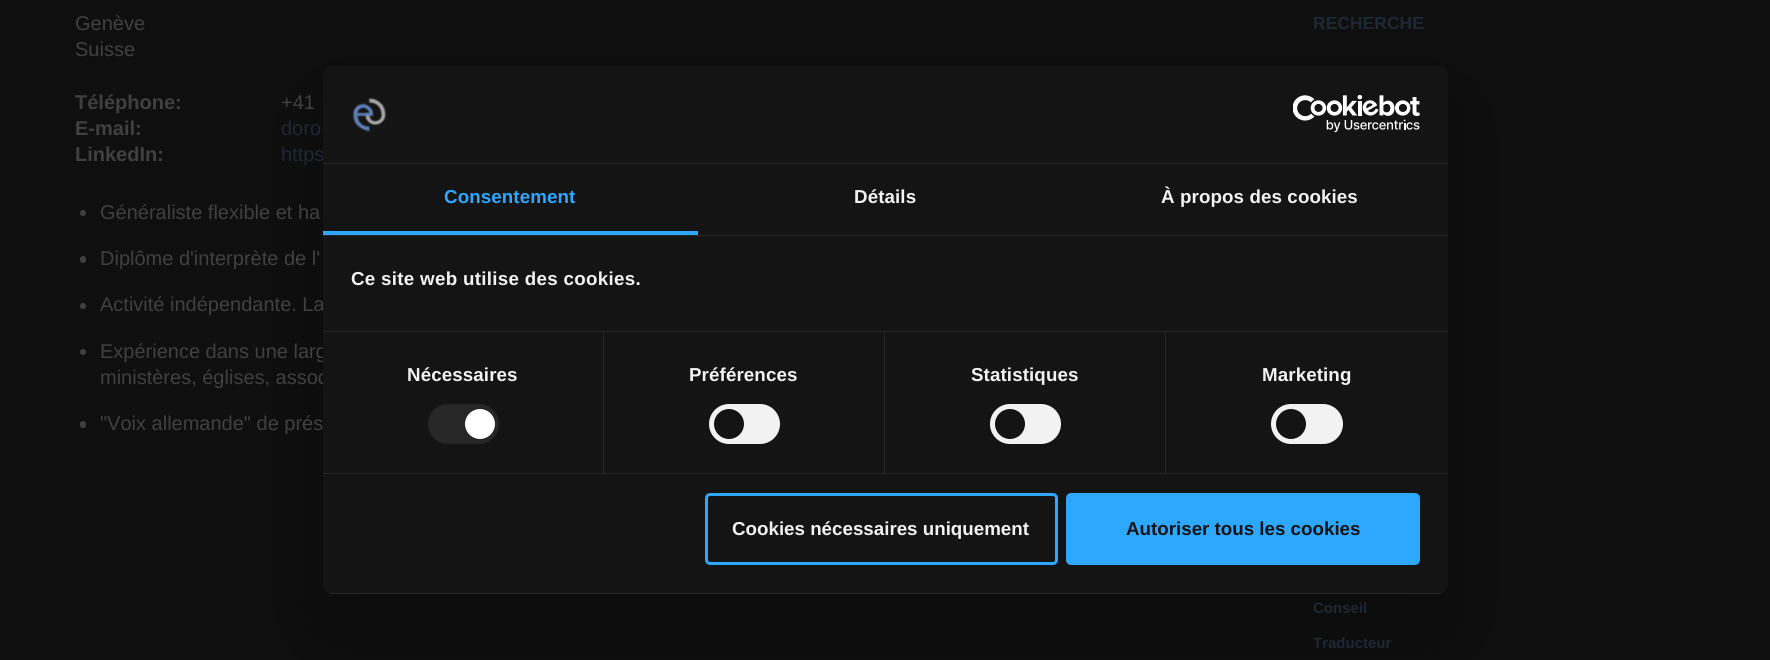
#include <cairo/cairo.h>
#include <math.h>
#include <stddef.h>

typedef struct { double x, y; const char *s; } line_t;
static cairo_t *cr;

static void rgb(unsigned color)
{
	cairo_set_source_rgb(cr, (color >> 16) / 255.0, (color >> 8 & 255) / 255.0, (color & 255) / 255.0);
}

static void tracked(double x, double y, const char *s, double letter, double word)
{
	cairo_move_to(cr, x, y);
	while (*s) {
		char ch[5] = {0};
		int n = 0;
		do ch[n++] = *s++; while ((*s & 0xC0) == 0x80);
		cairo_show_text(cr, ch);
		cairo_rel_move_to(cr, letter + word * (*ch == ' '), 0);
	}
}

static void rrect(double x, double y, double w, double h, double r)
{
	cairo_new_sub_path(cr);
	cairo_arc(cr, x + w - r, y + h - r, r, 0, M_PI / 2);
	cairo_arc(cr, x + r, y + h - r, r, M_PI / 2, M_PI);
	cairo_arc(cr, x + r, y + r, r, M_PI, 1.5 * M_PI);
	cairo_arc(cr, x + w - r, y + r, r, 1.5 * M_PI, 2 * M_PI);
	cairo_close_path(cr);
}

static void soft_shadow(double x, double y, double w, double h, double r, double blur, double alpha)
{
	cairo_push_group_with_content(cr, CAIRO_CONTENT_ALPHA);
	cairo_set_operator(cr, CAIRO_OPERATOR_SOURCE);
	for (int i = 15; i >= -15 && fmin(w, h) + blur * i / 3 > 0; i -= 2) {
		double e = blur * i / 6;
		cairo_set_source_rgba(cr, 0, 0, 0, alpha * erfc((i - 1) / 8.5) / 2);
		rrect(x - e, y - e, w + 2 * e, h + 2 * e, fmax(0, fmin(r + e + blur * .6, fmin(w, h) / 2 + e)));
		cairo_fill(cr);
	}
	cairo_pattern_t *soft = cairo_pop_group(cr);
	cairo_mask(cr, soft);
	cairo_pattern_destroy(soft);
}

static void image(const char *path, double x, double y, double w, double h)
{
	cairo_surface_t *image = cairo_image_surface_create_from_png(path);
	cairo_save(cr);
	cairo_set_source_surface(cr, image, x, y);
	cairo_rectangle(cr, x, y, w, h);
	cairo_fill(cr);
	cairo_restore(cr);
	cairo_surface_destroy(image);
}

int main(void) {
	cairo_surface_t *surface = cairo_image_surface_create(CAIRO_FORMAT_RGB24, 1770, 660);
	cr = cairo_create(surface);
	cairo_font_options_t *options = cairo_font_options_create();
	cairo_font_options_set_hint_metrics(options, CAIRO_HINT_METRICS_OFF);
	cairo_font_options_set_hint_style(options, CAIRO_HINT_STYLE_NONE);
	cairo_set_font_options(cr, options);
	cairo_set_miter_limit(cr, 4);
	rgb(0x0f0f0f);
	cairo_paint(cr);
	rgb(0x404040);
	cairo_arc(cr, 83, 213, 3, 0, 2 * M_PI);
	cairo_fill(cr);
	rrect(80, 256, 6, 7, 3);
	cairo_fill(cr);
	cairo_arc(cr, 83, 306, 3, 0, 2 * M_PI);
	cairo_fill(cr);
	cairo_arc(cr, 83, 352, 3, 0, 2 * M_PI);
	cairo_fill(cr);
	rrect(80, 421, 6, 7, 3);
	cairo_fill(cr);
	rgb(0x000000);
	soft_shadow(323, 106, 1125, 528, 10, 42.5, 0.3);
	cairo_select_font_face(cr, "Liberation Sans", CAIRO_FONT_SLANT_NORMAL, CAIRO_FONT_WEIGHT_NORMAL);
	cairo_set_font_size(cr, 20);
	rgb(0x404040);
	cairo_move_to(cr, 75, 30);
	cairo_show_text(cr, "Genève");
	cairo_move_to(cr, 75, 56);
	cairo_show_text(cr, "Suisse");
	cairo_select_font_face(cr, "Liberation Sans", CAIRO_FONT_SLANT_NORMAL, CAIRO_FONT_WEIGHT_BOLD);
	cairo_move_to(cr, 75, 109);
	cairo_show_text(cr, "Téléphone:");
	cairo_select_font_face(cr, "Liberation Sans", CAIRO_FONT_SLANT_NORMAL, CAIRO_FONT_WEIGHT_NORMAL);
	cairo_move_to(cr, 281, 109);
	cairo_show_text(cr, "+41");
	cairo_select_font_face(cr, "Liberation Sans", CAIRO_FONT_SLANT_NORMAL, CAIRO_FONT_WEIGHT_BOLD);
	cairo_move_to(cr, 75, 135);
	cairo_show_text(cr, "E-mail:");
	cairo_select_font_face(cr, "Liberation Sans", CAIRO_FONT_SLANT_NORMAL, CAIRO_FONT_WEIGHT_NORMAL);
	rgb(0x1d2834);
	cairo_move_to(cr, 281, 135);
	cairo_show_text(cr, "doro");
	cairo_select_font_face(cr, "Liberation Sans", CAIRO_FONT_SLANT_NORMAL, CAIRO_FONT_WEIGHT_BOLD);
	rgb(0x404040);
	cairo_move_to(cr, 75, 161);
	cairo_show_text(cr, "LinkedIn:");
	cairo_select_font_face(cr, "Liberation Sans", CAIRO_FONT_SLANT_NORMAL, CAIRO_FONT_WEIGHT_NORMAL);
	rgb(0x1d2834);
	cairo_move_to(cr, 281, 161);
	cairo_show_text(cr, "https");
	rgb(0x404040);
	{
		static const line_t items[] = {
			{100, 219, "Généraliste flexible et ha"},
			{100, 265, "Diplôme d'interprète de l'"},
			{100, 311, "Activité indépendante. La"},
			{100, 358, "Expérience dans une larg"},
			{100, 384, "ministères, églises, assoc"},
			{100, 430, "\"Voix allemande\" de prés"},
		};
		for (size_t i = 0; i < sizeof items / sizeof *items; i++) {
			cairo_move_to(cr, items[i].x, items[i].y);
			cairo_show_text(cr, items[i].s);
		}
	}
	cairo_select_font_face(cr, "Liberation Sans", CAIRO_FONT_SLANT_NORMAL, CAIRO_FONT_WEIGHT_BOLD);
	cairo_set_font_size(cr, 17.5);
	rgb(0x1d2834);
	cairo_move_to(cr, 1313, 29);
	cairo_show_text(cr, "RECHERCHE");
	cairo_set_font_size(cr, 15);
	cairo_move_to(cr, 1313, 613);
	cairo_show_text(cr, "Conseil");
	cairo_move_to(cr, 1313, 648);
	cairo_show_text(cr, "Traducteur");
	rgb(0x141414);
	rrect(323, 66, 1125, 528, 10);
	cairo_fill(cr);
	rgb(0x272727);
	cairo_rectangle(cr, 323, 163, 1125, 1);
	cairo_fill(cr);
	image("img/1.png", 352, 97, 35, 35);
	image("img/2.png", 1293, 95, 127, 38);
	cairo_rectangle(cr, 323, 235, 1125, 1);
	cairo_fill(cr);
	rgb(0x2ea7ff);
	cairo_rectangle(cr, 323, 231, 375, 4);
	cairo_fill(cr);
	cairo_set_font_size(cr, 18.75);
	tracked(444, 203, "Consentement", 0.1, 0);
	rgb(0xf2f2f2);
	tracked(854, 203, "Détails", 0.1, 0);
	tracked(1161, 203, "À propos des cookies", 0.1, 0);
	rgb(0x272727);
	cairo_rectangle(cr, 323, 331, 1125, 1);
	cairo_fill(cr);
	rgb(0xf2f2f2);
	tracked(351, 285, "Ce site web utilise des cookies.", 0.3, 0);
	rgb(0x272727);
	cairo_rectangle(cr, 323, 473, 1125, 1);
	cairo_fill(cr);
	cairo_rectangle(cr, 603, 333, 1, 140);
	cairo_fill(cr);
	rgb(0xf2f2f2);
	tracked(407, 381, "Nécessaires", 0.1, 0);
	rgb(0x272727);
	rrect(428, 404, 71, 40, 20);
	cairo_fill(cr);
	rgb(0xffffff);
	cairo_arc(cr, 480, 424, 15, 0, 2 * M_PI);
	cairo_fill(cr);
	rgb(0x272727);
	cairo_rectangle(cr, 884, 333, 1, 140);
	cairo_fill(cr);
	rgb(0xf2f2f2);
	tracked(689, 381, "Préférences", 0.1, 0);
	rrect(709, 404, 71, 40, 20);
	cairo_fill(cr);
	rgb(0x141414);
	cairo_arc(cr, 729, 424, 15, 0, 2 * M_PI);
	cairo_fill(cr);
	rgb(0x272727);
	cairo_rectangle(cr, 1165, 333, 1, 140);
	cairo_fill(cr);
	rgb(0xf2f2f2);
	tracked(971, 381, "Statistiques", 0.1, 0);
	rrect(990, 404, 71, 40, 20);
	cairo_fill(cr);
	rgb(0x141414);
	cairo_arc(cr, 1010, 424, 15, 0, 2 * M_PI);
	cairo_fill(cr);
	rgb(0xf2f2f2);
	tracked(1262, 381, "Marketing", 0.1, 0);
	rrect(1271, 404, 72, 40, 20);
	cairo_fill(cr);
	rgb(0x141414);
	cairo_arc(cr, 1291, 424, 15, 0, 2 * M_PI);
	cairo_fill(cr);
	cairo_save(cr);
	rrect(323, 66, 1125, 528, 10);
	cairo_clip(cr);
	cairo_set_source_rgba(cr, 1, 1, 1, 0.08);
	cairo_rectangle(cr, 323, 593, 1125, 1);
	cairo_fill(cr);
	cairo_restore(cr);
	rrect(706.5, 494.5, 350, 69, 3.5);
	rgb(0x2ea7ff);
	cairo_set_line_width(cr, 3);
	cairo_stroke(cr);
	rgb(0xf2f2f2);
	cairo_move_to(cr, 732, 535);
	cairo_show_text(cr, "Cookies nécessaires uniquement");
	rgb(0x2ea7ff);
	rrect(1067.5, 494.5, 351, 69, 3.5);
	cairo_fill_preserve(cr);
	cairo_stroke(cr);
	rgb(0x141414);
	cairo_move_to(cr, 1126, 535);
	cairo_show_text(cr, "Autoriser tous les cookies");
	cairo_surface_write_to_png(surface, "page.png");
	cairo_font_options_destroy(options);
	cairo_destroy(cr);
	cairo_surface_destroy(surface);
	return 0;
}
